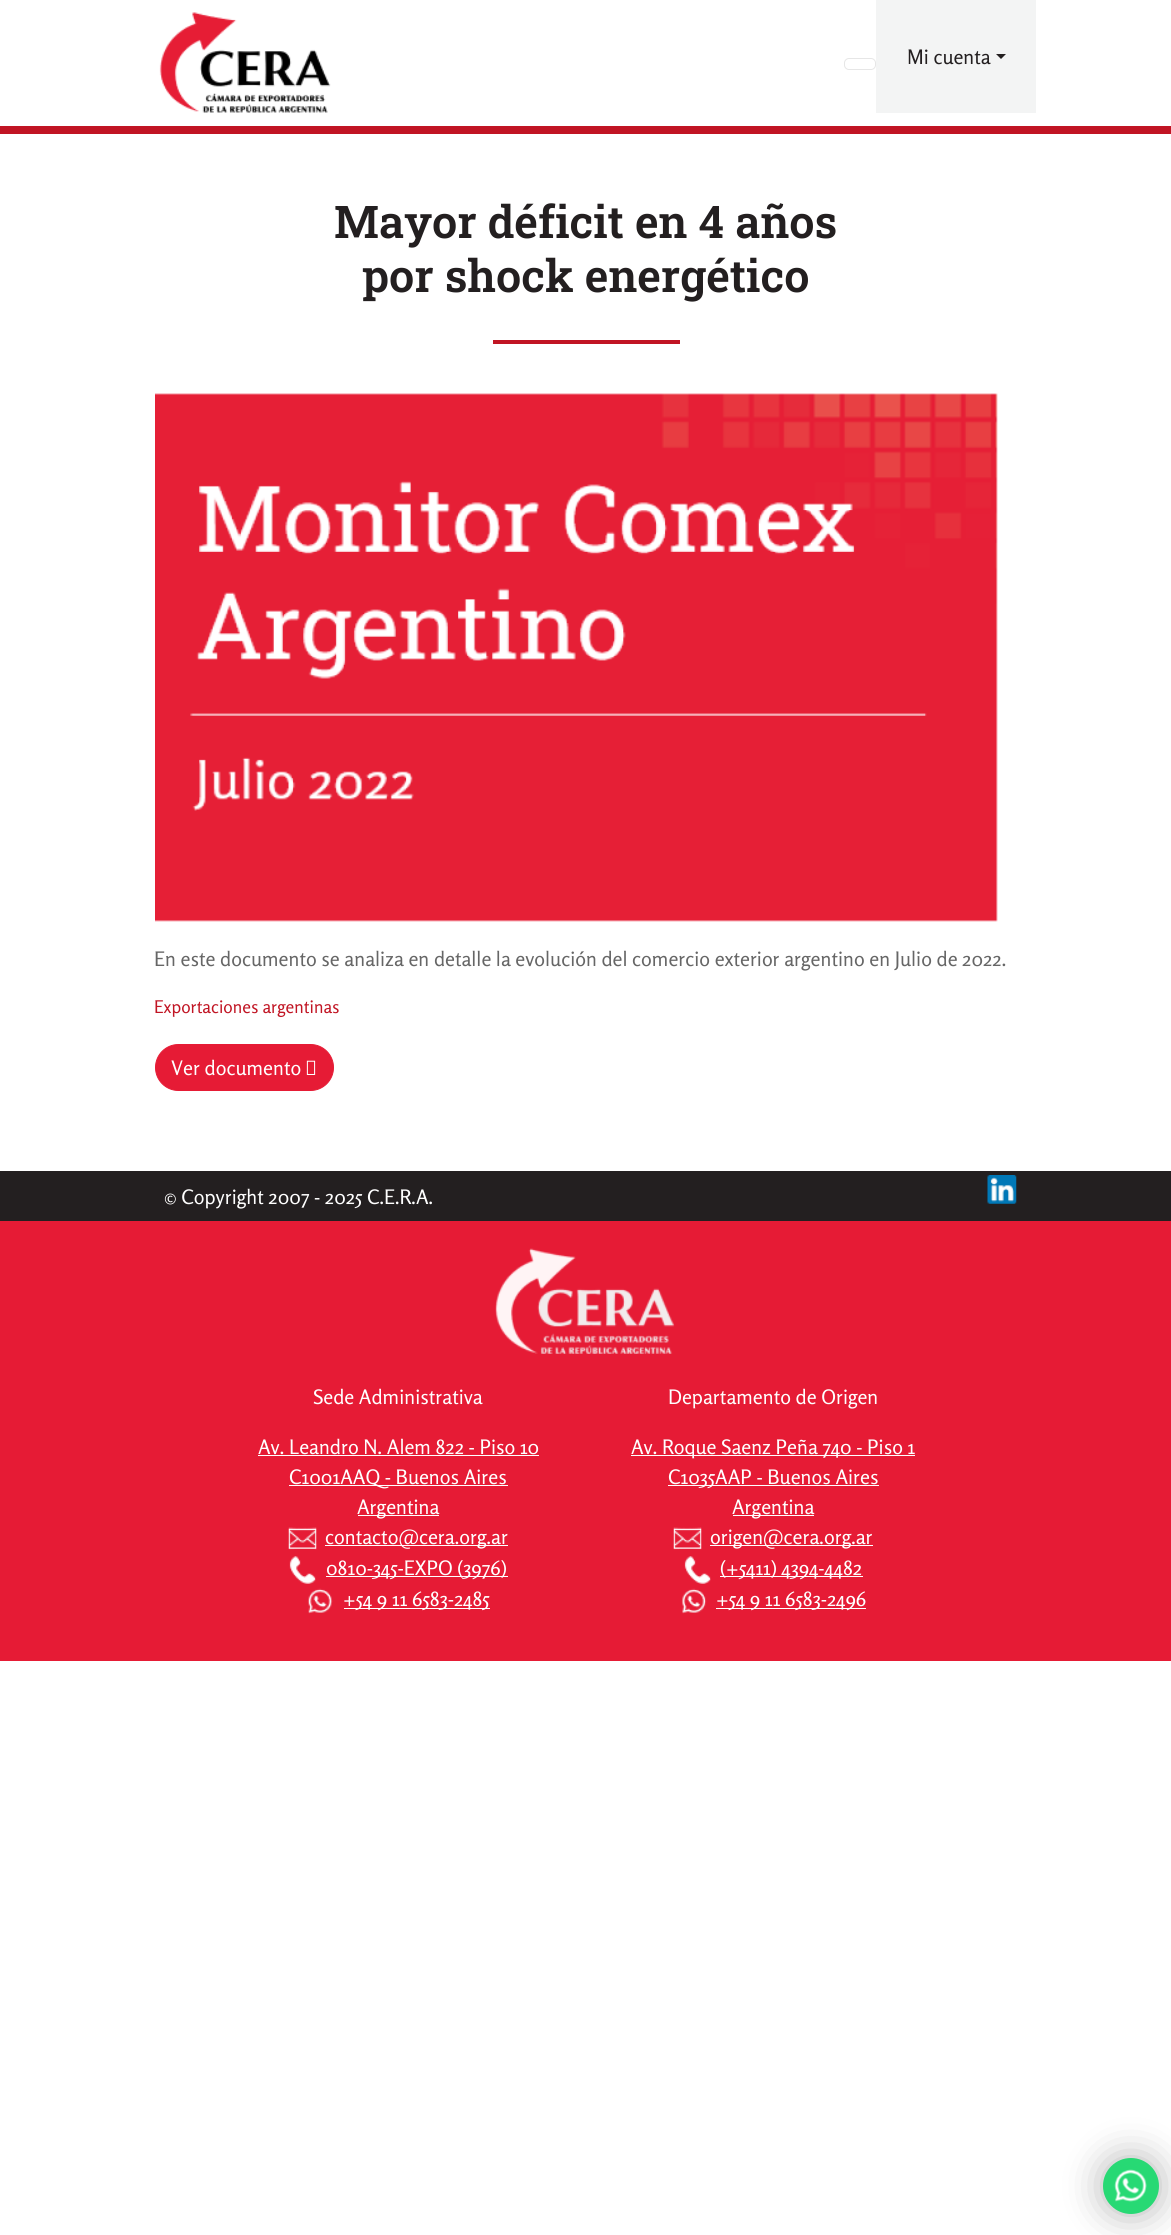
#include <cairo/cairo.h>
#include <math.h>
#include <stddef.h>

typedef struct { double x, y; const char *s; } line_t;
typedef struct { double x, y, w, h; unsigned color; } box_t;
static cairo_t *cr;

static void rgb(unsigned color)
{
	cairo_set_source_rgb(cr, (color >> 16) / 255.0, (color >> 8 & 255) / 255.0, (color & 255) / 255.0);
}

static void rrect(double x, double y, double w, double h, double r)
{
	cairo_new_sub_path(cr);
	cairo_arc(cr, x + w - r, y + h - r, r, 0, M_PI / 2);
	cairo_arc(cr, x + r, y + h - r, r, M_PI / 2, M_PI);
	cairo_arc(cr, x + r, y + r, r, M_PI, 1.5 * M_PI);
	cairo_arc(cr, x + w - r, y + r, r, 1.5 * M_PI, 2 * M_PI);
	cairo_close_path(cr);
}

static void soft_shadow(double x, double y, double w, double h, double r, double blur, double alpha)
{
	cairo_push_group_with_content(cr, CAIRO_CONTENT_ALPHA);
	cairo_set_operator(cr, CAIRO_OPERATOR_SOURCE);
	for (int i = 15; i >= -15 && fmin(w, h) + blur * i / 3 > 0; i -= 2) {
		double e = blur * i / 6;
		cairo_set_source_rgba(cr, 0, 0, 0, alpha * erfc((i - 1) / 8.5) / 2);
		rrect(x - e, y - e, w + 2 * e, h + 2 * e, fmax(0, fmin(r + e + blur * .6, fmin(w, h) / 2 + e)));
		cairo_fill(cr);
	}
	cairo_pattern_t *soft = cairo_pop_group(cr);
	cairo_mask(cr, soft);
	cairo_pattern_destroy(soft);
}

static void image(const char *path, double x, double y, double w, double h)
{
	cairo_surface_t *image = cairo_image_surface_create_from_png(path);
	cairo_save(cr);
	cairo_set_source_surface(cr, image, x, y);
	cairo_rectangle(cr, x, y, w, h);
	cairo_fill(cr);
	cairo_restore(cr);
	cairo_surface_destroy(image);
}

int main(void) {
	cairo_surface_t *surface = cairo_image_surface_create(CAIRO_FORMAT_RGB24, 1171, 2235);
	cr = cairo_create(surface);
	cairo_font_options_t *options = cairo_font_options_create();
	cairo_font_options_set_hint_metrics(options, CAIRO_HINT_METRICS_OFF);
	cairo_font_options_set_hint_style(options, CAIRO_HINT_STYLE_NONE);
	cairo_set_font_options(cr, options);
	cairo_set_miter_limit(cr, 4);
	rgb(0xffffff);
	cairo_paint(cr);
	rgb(0xc11524);
	cairo_rectangle(cr, 0, 126, 1171, 8);
	cairo_fill(cr);
	image("img/1.png", 159, 12, 172, 101);
	rrect(844.5, 58.5, 31, 11, 4.5);
	rgb(0xe6e6e6);
	cairo_set_line_width(cr, 1);
	cairo_stroke(cr);
	rgb(0xf3f4f4);
	cairo_rectangle(cr, 876, 0, 160, 113);
	cairo_fill(cr);
	rgb(0x231f20);
	cairo_new_path(cr);
	cairo_move_to(cr, 996, 54);
	cairo_line_to(cr, 1006, 54);
	cairo_line_to(cr, 1001, 59);
	cairo_close_path(cr);
	cairo_fill(cr);
	rgb(0xc11524);
	cairo_rectangle(cr, 493, 340, 187, 4);
	cairo_fill(cr);
	image("img/2.png", 155, 393, 843, 529);
	rgb(0xe61b35);
	rrect(155.5, 1044.5, 178, 46, 23);
	cairo_fill_preserve(cr);
	cairo_stroke(cr);
	image("img/3.png", 306, 1060, 10, 15);
	rgb(0x231f20);
	cairo_rectangle(cr, 0, 1171, 1171, 50);
	cairo_fill(cr);
	image("img/4.png", 987, 1175, 30, 29);
	rgb(0xe61b35);
	cairo_rectangle(cr, 0, 1221, 1171, 440);
	cairo_fill(cr);
	image("img/5.png", 495, 1248, 180, 106);
	{
		static const box_t items[] = {
			{258, 1455, 281, 1, 0xffffff},
			{289, 1485, 219, 1, 0xffffff},
			{358, 1515, 81, 1, 0xffffff},
		};
		for (size_t i = 0; i < sizeof items / sizeof *items; i++) {
			rgb(items[i].color);
			cairo_rectangle(cr, items[i].x, items[i].y, items[i].w, items[i].h);
			cairo_fill(cr);
		}
	}
	image("img/6.png", 288, 1527, 29, 23);
	cairo_rectangle(cr, 325, 1545, 183, 1);
	cairo_fill(cr);
	image("img/7.png", 289, 1556, 27, 28);
	cairo_rectangle(cr, 326, 1576, 182, 1);
	cairo_fill(cr);
	image("img/8.png", 307, 1588, 26, 26);
	{
		static const box_t items[] = {
			{344, 1608, 146, 1, 0xffffff},
			{631, 1455, 284, 1, 0xffffff},
			{668, 1485, 211, 1, 0xffffff},
			{733, 1515, 81, 1, 0xffffff},
		};
		for (size_t i = 0; i < sizeof items / sizeof *items; i++) {
			rgb(items[i].color);
			cairo_rectangle(cr, items[i].x, items[i].y, items[i].w, items[i].h);
			cairo_fill(cr);
		}
	}
	image("img/6.png", 673, 1527, 29, 23);
	cairo_rectangle(cr, 710, 1545, 163, 1);
	cairo_fill(cr);
	image("img/7.png", 684, 1556, 27, 28);
	cairo_rectangle(cr, 720, 1576, 143, 1);
	cairo_fill(cr);
	image("img/9.png", 681, 1588, 26, 26);
	cairo_rectangle(cr, 716, 1608, 150, 1);
	cairo_fill(cr);
	rgb(0x000000);
	soft_shadow(1103, 2158, 56, 56, 28, 19, 0.3);
	rgb(0x27d974);
	cairo_arc(cr, 1131, 2186, 28, 0, 2 * M_PI);
	cairo_fill(cr);
	image("img/10.png", 1114, 2169, 33, 33);
	cairo_select_font_face(cr, "Rosario", CAIRO_FONT_SLANT_NORMAL, CAIRO_FONT_WEIGHT_NORMAL);
	cairo_set_font_size(cr, 20);
	rgb(0x231f20);
	cairo_move_to(cr, 907, 64);
	cairo_show_text(cr, "Mi cuenta");
	cairo_select_font_face(cr, "Roboto Slab SemiBold", CAIRO_FONT_SLANT_NORMAL, CAIRO_FONT_WEIGHT_NORMAL);
	cairo_set_font_size(cr, 45);
	cairo_move_to(cr, 334, 238);
	cairo_show_text(cr, "Mayor déficit en 4 años");
	cairo_move_to(cr, 362, 292);
	cairo_show_text(cr, "por shock energético");
	cairo_select_font_face(cr, "Rosario", CAIRO_FONT_SLANT_NORMAL, CAIRO_FONT_WEIGHT_NORMAL);
	cairo_set_font_size(cr, 20);
	rgb(0x666666);
	cairo_move_to(cr, 154, 966);
	cairo_show_text(cr, "En este documento se analiza en detalle la evolución del comercio exterior argentino en Julio de 2022.");
	cairo_set_font_size(cr, 17.5);
	rgb(0xc11524);
	cairo_move_to(cr, 154, 1013);
	cairo_show_text(cr, "Exportaciones argentinas");
	cairo_set_font_size(cr, 20);
	rgb(0xffffff);
	{
		static const line_t items[] = {
			{171, 1075, "Ver documento"},
			{164, 1204, "© Copyright 2007 - 2025 C.E.R.A."},
			{313, 1404, "Sede Administrativa"},
			{258, 1454, "Av. Leandro N. Alem 822 - Piso 10"},
			{289, 1484, "C1001AAQ - Buenos Aires"},
			{357, 1514, "Argentina"},
			{325, 1544, "contacto@cera.org.ar"},
			{326, 1575, "0810-345-EXPO (3976)"},
			{343, 1606, "+54 9 11 6583-2485"},
			{668, 1404, "Departamento de Origen"},
			{631, 1454, "Av. Roque Saenz Peña 740 - Piso 1"},
			{668, 1484, "C1035AAP - Buenos Aires"},
			{732, 1514, "Argentina"},
			{710, 1544, "origen@cera.org.ar"},
			{720, 1575, "(+5411) 4394-4482"},
			{716, 1606, "+54 9 11 6583-2496"},
		};
		for (size_t i = 0; i < sizeof items / sizeof *items; i++) {
			cairo_move_to(cr, items[i].x, items[i].y);
			cairo_show_text(cr, items[i].s);
		}
	}
	cairo_surface_write_to_png(surface, "page.png");
	cairo_font_options_destroy(options);
	cairo_destroy(cr);
	cairo_surface_destroy(surface);
	return 0;
}
